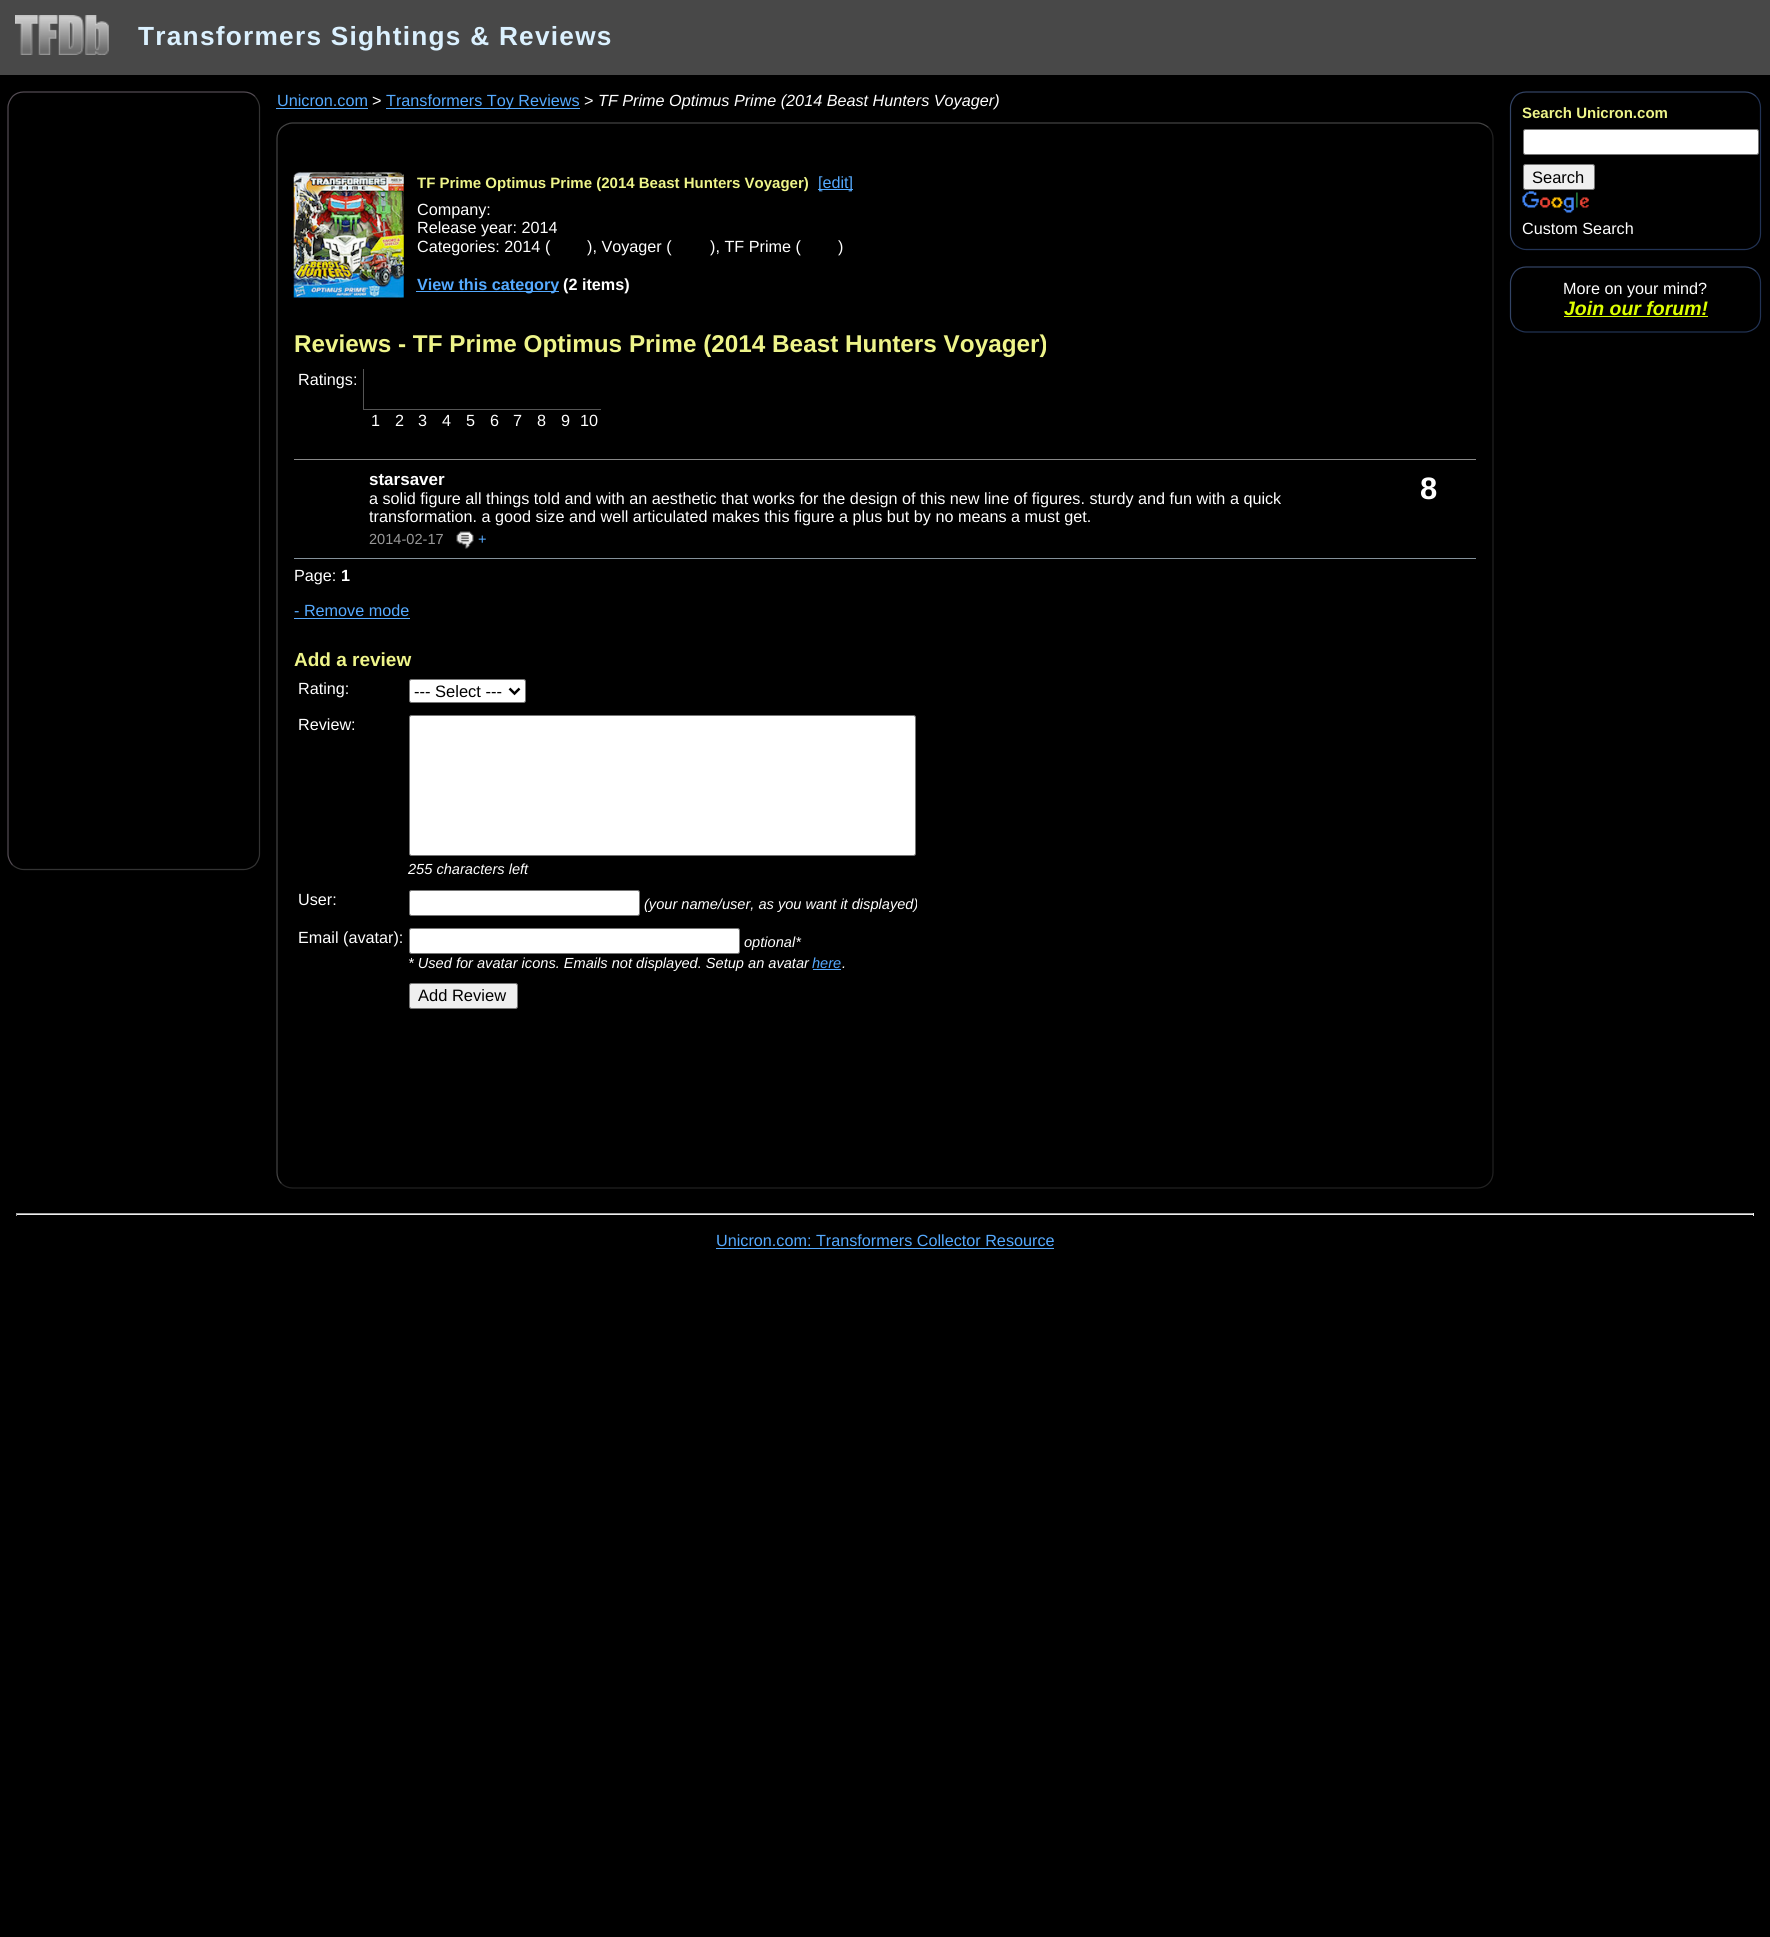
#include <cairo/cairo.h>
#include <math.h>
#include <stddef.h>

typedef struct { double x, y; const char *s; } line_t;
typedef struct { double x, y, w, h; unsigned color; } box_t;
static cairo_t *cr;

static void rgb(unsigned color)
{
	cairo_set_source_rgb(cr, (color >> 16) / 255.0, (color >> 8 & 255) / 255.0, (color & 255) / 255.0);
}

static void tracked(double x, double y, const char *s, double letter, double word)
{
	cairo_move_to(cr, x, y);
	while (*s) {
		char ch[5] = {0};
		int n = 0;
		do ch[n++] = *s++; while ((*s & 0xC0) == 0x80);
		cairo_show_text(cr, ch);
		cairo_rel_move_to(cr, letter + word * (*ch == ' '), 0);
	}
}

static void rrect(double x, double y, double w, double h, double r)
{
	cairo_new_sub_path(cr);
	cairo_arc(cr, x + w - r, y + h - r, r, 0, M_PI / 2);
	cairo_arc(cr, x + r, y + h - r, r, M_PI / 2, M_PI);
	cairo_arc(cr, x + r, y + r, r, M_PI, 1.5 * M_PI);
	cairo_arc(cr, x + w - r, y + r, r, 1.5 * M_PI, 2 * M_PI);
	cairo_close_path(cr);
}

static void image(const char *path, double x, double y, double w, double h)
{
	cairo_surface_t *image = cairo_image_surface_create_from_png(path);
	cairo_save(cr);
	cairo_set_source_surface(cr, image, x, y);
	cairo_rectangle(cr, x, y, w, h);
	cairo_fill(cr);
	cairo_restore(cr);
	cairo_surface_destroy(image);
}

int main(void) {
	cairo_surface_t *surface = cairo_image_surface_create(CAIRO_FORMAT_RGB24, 1770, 1937);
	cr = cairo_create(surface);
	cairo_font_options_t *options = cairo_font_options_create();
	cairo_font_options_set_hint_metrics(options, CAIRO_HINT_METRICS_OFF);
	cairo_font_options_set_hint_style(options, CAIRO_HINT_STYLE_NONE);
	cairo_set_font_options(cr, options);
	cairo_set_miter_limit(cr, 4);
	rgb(0x000000);
	cairo_paint(cr);
	rgb(0x484848);
	cairo_rectangle(cr, 0, 0, 1770, 75);
	cairo_fill(cr);
	image("img/1.png", 15, 15, 94, 40);
	cairo_new_path(cr);
	cairo_move_to(cr, 255, 96.5);
	cairo_curve_to(cr, 257.5, 99.5, 259.5, 103.5, 259.5, 107.5);
	cairo_line_to(cr, 259.5, 854);
	cairo_curve_to(cr, 259.5, 858, 257.5, 862, 255, 865);
	cairo_curve_to(cr, 252, 867.5, 248, 869.5, 244, 869.5);
	cairo_line_to(cr, 23.5, 869.5);
	cairo_curve_to(cr, 19.5, 869.5, 15.5, 867.5, 12.5, 865);
	rgb(0x333333);
	cairo_set_line_width(cr, 1.2);
	cairo_stroke(cr);
	cairo_new_path(cr);
	cairo_move_to(cr, 12.5, 865);
	cairo_curve_to(cr, 10, 862, 8, 858, 8, 854);
	cairo_line_to(cr, 8, 107.5);
	cairo_curve_to(cr, 8, 103.5, 10, 99.5, 12.5, 96.5);
	cairo_curve_to(cr, 15.5, 93.5, 19.5, 92, 23.5, 92);
	cairo_line_to(cr, 244, 92);
	cairo_curve_to(cr, 248, 92, 252, 93.5, 255, 96.5);
	rgb(0x554d55);
	cairo_stroke(cr);
	rgb(0x55aaff);
	cairo_rectangle(cr, 276, 108, 92, 1);
	cairo_fill(cr);
	cairo_rectangle(cr, 386, 108, 194, 1);
	cairo_fill(cr);
	cairo_new_path(cr);
	cairo_move_to(cr, 1488.5, 127.5);
	cairo_curve_to(cr, 1491.5, 130.5, 1493, 134.5, 1493, 138.5);
	cairo_line_to(cr, 1493, 1172.5);
	cairo_curve_to(cr, 1493, 1176.5, 1491.5, 1180.5, 1488.5, 1183.5);
	cairo_curve_to(cr, 1485.5, 1186.5, 1481.5, 1188, 1477.5, 1188);
	cairo_line_to(cr, 292.5, 1188);
	cairo_curve_to(cr, 288.5, 1188, 284.5, 1186.5, 281.5, 1183.5);
	rgb(0x222222);
	cairo_stroke(cr);
	cairo_new_path(cr);
	cairo_move_to(cr, 281.5, 1183.5);
	cairo_curve_to(cr, 278.5, 1180.5, 277, 1176.5, 277, 1172.5);
	cairo_line_to(cr, 277, 138.5);
	cairo_curve_to(cr, 277, 134.5, 278.5, 130.5, 281.5, 127.5);
	cairo_curve_to(cr, 284.5, 125, 288.5, 123, 292.5, 123);
	cairo_line_to(cr, 1477.5, 123);
	cairo_curve_to(cr, 1481.5, 123, 1485.5, 125, 1488.5, 127.5);
	rgb(0x444444);
	cairo_stroke(cr);
	image("img/2.png", 293, 172, 111, 126);
	{
		static const box_t items[] = {
			{818, 189, 35, 1, 0x55aaff},
			{416, 291, 143, 1, 0x55aaff},
			{363, 409, 238, 1, 0x555555},
			{363, 369, 1, 41, 0x555555},
			{294, 459, 1182, 1, 0x888888},
			{294, 558, 1182, 1, 0x84919a},
		};
		for (size_t i = 0; i < sizeof items / sizeof *items; i++) {
			rgb(items[i].color);
			cairo_rectangle(cr, items[i].x, items[i].y, items[i].w, items[i].h);
			cairo_fill(cr);
		}
	}
	image("img/3.png", 456, 531, 18, 18);
	rgb(0x55aaff);
	cairo_rectangle(cr, 294, 618, 116, 1);
	cairo_fill(cr);
	rgb(0xffffff);
	rrect(409.5, 679.5, 116, 23, 2);
	cairo_fill_preserve(cr);
	rgb(0x767676);
	cairo_set_line_width(cr, 1);
	cairo_stroke(cr);
	cairo_new_path(cr);
	cairo_move_to(cr, 509.5, 688.5);
	cairo_line_to(cr, 514.5, 693.5);
	cairo_line_to(cr, 519.5, 688.5);
	rgb(0x000000);
	cairo_set_line_width(cr, 2.5);
	cairo_stroke(cr);
	rgb(0xffffff);
	rrect(409.5, 715.5, 506, 140, 2);
	cairo_fill_preserve(cr);
	rgb(0x767676);
	cairo_set_line_width(cr, 1);
	cairo_stroke(cr);
	rgb(0xffffff);
	rrect(409.5, 890.5, 230, 25, 2);
	cairo_fill_preserve(cr);
	rgb(0x767676);
	cairo_stroke(cr);
	rgb(0xffffff);
	rrect(409.5, 928.5, 330, 25, 2);
	cairo_fill_preserve(cr);
	rgb(0x767676);
	cairo_stroke(cr);
	rgb(0x55aaff);
	cairo_rectangle(cr, 813, 969, 28, 1);
	cairo_fill(cr);
	rgb(0xefefef);
	rrect(409.5, 983.5, 108, 25, 2);
	cairo_fill_preserve(cr);
	rgb(0x767676);
	cairo_stroke(cr);
	cairo_new_path(cr);
	cairo_move_to(cr, 1756, 96.5);
	cairo_curve_to(cr, 1759, 99.5, 1760.5, 103.5, 1760.5, 107.5);
	cairo_line_to(cr, 1760.5, 234);
	cairo_curve_to(cr, 1760.5, 238, 1759, 242, 1756, 245);
	cairo_curve_to(cr, 1753, 247.5, 1749, 249.5, 1745, 249.5);
	cairo_line_to(cr, 1526, 249.5);
	cairo_curve_to(cr, 1522, 249.5, 1518, 247.5, 1515, 245);
	rgb(0x223355);
	cairo_set_line_width(cr, 1.2);
	cairo_stroke(cr);
	cairo_new_path(cr);
	cairo_move_to(cr, 1515, 245);
	cairo_curve_to(cr, 1512.5, 242, 1510.5, 238, 1510.5, 234);
	cairo_line_to(cr, 1510.5, 107.5);
	cairo_curve_to(cr, 1510.5, 103.5, 1512.5, 99.5, 1515, 96.5);
	cairo_curve_to(cr, 1518, 93.5, 1522, 92, 1526, 92);
	cairo_line_to(cr, 1745, 92);
	cairo_curve_to(cr, 1749, 92, 1753, 93.5, 1756, 96.5);
	rgb(0x334466);
	cairo_stroke(cr);
	rgb(0xffffff);
	rrect(1523.5, 129.5, 235, 25, 2);
	cairo_fill_preserve(cr);
	rgb(0x767676);
	cairo_set_line_width(cr, 1);
	cairo_stroke(cr);
	rgb(0xefefef);
	rrect(1523.5, 164.5, 71, 25, 2);
	cairo_fill_preserve(cr);
	rgb(0x767676);
	cairo_stroke(cr);
	image("img/4.png", 1522, 191, 67, 22);
	cairo_new_path(cr);
	cairo_move_to(cr, 1756, 271.5);
	cairo_curve_to(cr, 1759, 274.5, 1760.5, 278.5, 1760.5, 282.5);
	cairo_line_to(cr, 1760.5, 316.5);
	cairo_curve_to(cr, 1760.5, 320.5, 1759, 324.5, 1756, 327.5);
	cairo_curve_to(cr, 1753, 330, 1749, 332, 1745, 332);
	cairo_line_to(cr, 1526, 332);
	cairo_curve_to(cr, 1522, 332, 1518, 330, 1515, 327.5);
	rgb(0x223355);
	cairo_set_line_width(cr, 1.2);
	cairo_stroke(cr);
	cairo_new_path(cr);
	cairo_move_to(cr, 1515, 327.5);
	cairo_curve_to(cr, 1512.5, 324.5, 1510.5, 320.5, 1510.5, 316.5);
	cairo_line_to(cr, 1510.5, 282.5);
	cairo_curve_to(cr, 1510.5, 278.5, 1512.5, 274.5, 1515, 271.5);
	cairo_curve_to(cr, 1518, 268.5, 1522, 267, 1526, 267);
	cairo_line_to(cr, 1745, 267);
	cairo_curve_to(cr, 1749, 267, 1753, 268.5, 1756, 271.5);
	rgb(0x334466);
	cairo_stroke(cr);
	{
		static const box_t items[] = {
			{1564, 316, 144, 1, 0xddff00},
			{16, 1213, 1738, 1, 0x9f9f9f},
			{1753, 1213, 1, 3, 0xeeeeee},
			{16, 1214, 1738, 1, 0xeeeeee},
			{16, 1213, 1, 3, 0x9f9f9f},
			{716, 1248, 338, 1, 0x55aaff},
		};
		for (size_t i = 0; i < sizeof items / sizeof *items; i++) {
			rgb(items[i].color);
			cairo_rectangle(cr, items[i].x, items[i].y, items[i].w, items[i].h);
			cairo_fill(cr);
		}
	}
	cairo_select_font_face(cr, "Liberation Sans", CAIRO_FONT_SLANT_NORMAL, CAIRO_FONT_WEIGHT_BOLD);
	cairo_set_font_size(cr, 26.25);
	rgb(0xdbf1ff);
	tracked(138, 45, "Transformers Sightings & Reviews", 1.25, 0);
	cairo_select_font_face(cr, "Liberation Sans", CAIRO_FONT_SLANT_NORMAL, CAIRO_FONT_WEIGHT_NORMAL);
	cairo_set_font_size(cr, 16.2);
	rgb(0x55aaff);
	cairo_move_to(cr, 277, 106);
	cairo_show_text(cr, "Unicron.com");
	rgb(0xffffff);
	cairo_move_to(cr, 372, 106);
	cairo_show_text(cr, ">");
	rgb(0x55aaff);
	cairo_move_to(cr, 386, 106);
	cairo_show_text(cr, "Transformers Toy Reviews");
	rgb(0xffffff);
	cairo_move_to(cr, 584, 106);
	cairo_show_text(cr, ">");
	cairo_select_font_face(cr, "Liberation Sans", CAIRO_FONT_SLANT_ITALIC, CAIRO_FONT_WEIGHT_NORMAL);
	cairo_move_to(cr, 598, 106);
	cairo_show_text(cr, "TF Prime Optimus Prime (2014 Beast Hunters Voyager)");
	cairo_select_font_face(cr, "Liberation Sans", CAIRO_FONT_SLANT_NORMAL, CAIRO_FONT_WEIGHT_BOLD);
	cairo_set_font_size(cr, 15);
	rgb(0xeef489);
	cairo_move_to(cr, 417, 188);
	cairo_show_text(cr, "TF Prime Optimus Prime (2014 Beast Hunters Voyager)");
	cairo_select_font_face(cr, "Liberation Sans", CAIRO_FONT_SLANT_NORMAL, CAIRO_FONT_WEIGHT_NORMAL);
	cairo_set_font_size(cr, 16.2);
	rgb(0x55aaff);
	cairo_move_to(cr, 818, 188);
	cairo_show_text(cr, "[edit]");
	rgb(0xffffff);
	{
		static const line_t items[] = {
			{417, 215, "Company:"},
			{417, 233, "Release year: 2014"},
			{417, 252, "Categories: 2014 ("},
			{587, 252, "), Voyager ("},
			{710, 252, "), TF Prime ("},
			{838, 252, ")"},
		};
		for (size_t i = 0; i < sizeof items / sizeof *items; i++) {
			cairo_move_to(cr, items[i].x, items[i].y);
			cairo_show_text(cr, items[i].s);
		}
	}
	cairo_select_font_face(cr, "Liberation Sans", CAIRO_FONT_SLANT_NORMAL, CAIRO_FONT_WEIGHT_BOLD);
	rgb(0x55aaff);
	cairo_move_to(cr, 417, 290);
	cairo_show_text(cr, "View this category");
	rgb(0xffffff);
	cairo_move_to(cr, 563, 290);
	cairo_show_text(cr, "(2 items)");
	cairo_set_font_size(cr, 24.3);
	rgb(0xeef489);
	cairo_move_to(cr, 294, 352);
	cairo_show_text(cr, "Reviews - TF Prime Optimus Prime (2014 Beast Hunters Voyager)");
	cairo_select_font_face(cr, "Liberation Sans", CAIRO_FONT_SLANT_NORMAL, CAIRO_FONT_WEIGHT_NORMAL);
	cairo_set_font_size(cr, 16.2);
	rgb(0xffffff);
	{
		static const line_t items[] = {
			{298, 385, "Ratings:"},
			{371, 426, "1"},
			{395, 426, "2"},
			{418, 426, "3"},
			{442, 426, "4"},
			{466, 426, "5"},
			{490, 426, "6"},
			{513, 426, "7"},
			{537, 426, "8"},
			{561, 426, "9"},
			{580, 426, "10"},
		};
		for (size_t i = 0; i < sizeof items / sizeof *items; i++) {
			cairo_move_to(cr, items[i].x, items[i].y);
			cairo_show_text(cr, items[i].s);
		}
	}
	cairo_select_font_face(cr, "Liberation Sans", CAIRO_FONT_SLANT_NORMAL, CAIRO_FONT_WEIGHT_BOLD);
	cairo_set_font_size(cr, 17);
	cairo_move_to(cr, 369, 485);
	cairo_show_text(cr, "starsaver");
	cairo_select_font_face(cr, "Liberation Sans", CAIRO_FONT_SLANT_NORMAL, CAIRO_FONT_WEIGHT_NORMAL);
	cairo_set_font_size(cr, 16.2);
	cairo_move_to(cr, 369, 504);
	cairo_show_text(cr, "a solid figure all things told and with an aesthetic that works for the design of this new line of figures. sturdy and fun with a quick");
	cairo_move_to(cr, 369, 522);
	cairo_show_text(cr, "transformation. a good size and well articulated makes this figure a plus but by no means a must get.");
	cairo_set_font_size(cr, 14.6);
	rgb(0x999999);
	cairo_move_to(cr, 369, 544);
	cairo_show_text(cr, "2014-02-17");
	rgb(0x55aaff);
	cairo_move_to(cr, 478, 544);
	cairo_show_text(cr, "+");
	cairo_select_font_face(cr, "Liberation Sans", CAIRO_FONT_SLANT_NORMAL, CAIRO_FONT_WEIGHT_BOLD);
	cairo_set_font_size(cr, 31);
	rgb(0xffffff);
	cairo_move_to(cr, 1420, 499);
	cairo_show_text(cr, "8");
	cairo_select_font_face(cr, "Liberation Sans", CAIRO_FONT_SLANT_NORMAL, CAIRO_FONT_WEIGHT_NORMAL);
	cairo_set_font_size(cr, 16.2);
	cairo_move_to(cr, 294, 581);
	cairo_show_text(cr, "Page:");
	cairo_select_font_face(cr, "Liberation Sans", CAIRO_FONT_SLANT_NORMAL, CAIRO_FONT_WEIGHT_BOLD);
	cairo_move_to(cr, 341, 581);
	cairo_show_text(cr, "1");
	cairo_select_font_face(cr, "Liberation Sans", CAIRO_FONT_SLANT_NORMAL, CAIRO_FONT_WEIGHT_NORMAL);
	rgb(0x55aaff);
	cairo_move_to(cr, 294, 616);
	cairo_show_text(cr, "- Remove mode");
	cairo_select_font_face(cr, "Liberation Sans", CAIRO_FONT_SLANT_NORMAL, CAIRO_FONT_WEIGHT_BOLD);
	cairo_set_font_size(cr, 19);
	rgb(0xeef489);
	cairo_move_to(cr, 294, 666);
	cairo_show_text(cr, "Add a review");
	cairo_select_font_face(cr, "Liberation Sans", CAIRO_FONT_SLANT_NORMAL, CAIRO_FONT_WEIGHT_NORMAL);
	cairo_set_font_size(cr, 16.2);
	rgb(0xffffff);
	cairo_move_to(cr, 298, 694);
	cairo_show_text(cr, "Rating:");
	cairo_set_font_size(cr, 16.5);
	rgb(0x000000);
	cairo_move_to(cr, 414, 697);
	cairo_show_text(cr, "--- Select ---");
	cairo_set_font_size(cr, 16.2);
	rgb(0xffffff);
	cairo_move_to(cr, 298, 730);
	cairo_show_text(cr, "Review:");
	cairo_select_font_face(cr, "Liberation Sans", CAIRO_FONT_SLANT_ITALIC, CAIRO_FONT_WEIGHT_NORMAL);
	cairo_set_font_size(cr, 14.6);
	cairo_move_to(cr, 408, 874);
	cairo_show_text(cr, "255 characters left");
	cairo_select_font_face(cr, "Liberation Sans", CAIRO_FONT_SLANT_NORMAL, CAIRO_FONT_WEIGHT_NORMAL);
	cairo_set_font_size(cr, 16.2);
	cairo_move_to(cr, 298, 905);
	cairo_show_text(cr, "User:");
	cairo_select_font_face(cr, "Liberation Sans", CAIRO_FONT_SLANT_ITALIC, CAIRO_FONT_WEIGHT_NORMAL);
	cairo_set_font_size(cr, 14.6);
	cairo_move_to(cr, 644, 909);
	cairo_show_text(cr, "(your name/user, as you want it displayed)");
	cairo_select_font_face(cr, "Liberation Sans", CAIRO_FONT_SLANT_NORMAL, CAIRO_FONT_WEIGHT_NORMAL);
	cairo_set_font_size(cr, 16.2);
	cairo_move_to(cr, 298, 943);
	cairo_show_text(cr, "Email (avatar):");
	cairo_select_font_face(cr, "Liberation Sans", CAIRO_FONT_SLANT_ITALIC, CAIRO_FONT_WEIGHT_NORMAL);
	cairo_set_font_size(cr, 14.6);
	cairo_move_to(cr, 744, 947);
	cairo_show_text(cr, "optional*");
	cairo_move_to(cr, 408, 968);
	cairo_show_text(cr, "* Used for avatar icons. Emails not displayed. Setup an avatar");
	rgb(0x55aaff);
	cairo_move_to(cr, 812, 968);
	cairo_show_text(cr, "here");
	rgb(0xffffff);
	cairo_move_to(cr, 842, 968);
	cairo_show_text(cr, ".");
	cairo_select_font_face(cr, "Liberation Sans", CAIRO_FONT_SLANT_NORMAL, CAIRO_FONT_WEIGHT_NORMAL);
	cairo_set_font_size(cr, 16.5);
	rgb(0x000000);
	cairo_move_to(cr, 418, 1001);
	cairo_show_text(cr, "Add Review");
	cairo_select_font_face(cr, "Liberation Sans", CAIRO_FONT_SLANT_NORMAL, CAIRO_FONT_WEIGHT_BOLD);
	cairo_set_font_size(cr, 15);
	rgb(0xeef489);
	cairo_move_to(cr, 1522, 118);
	cairo_show_text(cr, "Search Unicron.com");
	cairo_select_font_face(cr, "Liberation Sans", CAIRO_FONT_SLANT_NORMAL, CAIRO_FONT_WEIGHT_NORMAL);
	cairo_set_font_size(cr, 16.5);
	rgb(0x000000);
	cairo_move_to(cr, 1532, 183);
	cairo_show_text(cr, "Search");
	cairo_set_font_size(cr, 16.2);
	rgb(0xffffff);
	cairo_move_to(cr, 1522, 234);
	cairo_show_text(cr, "Custom Search");
	cairo_move_to(cr, 1563, 294);
	cairo_show_text(cr, "More on your mind?");
	cairo_select_font_face(cr, "Liberation Sans", CAIRO_FONT_SLANT_ITALIC, CAIRO_FONT_WEIGHT_BOLD);
	cairo_set_font_size(cr, 19.5);
	rgb(0xddff00);
	cairo_move_to(cr, 1564, 315);
	cairo_show_text(cr, "Join our forum!");
	cairo_select_font_face(cr, "Liberation Sans", CAIRO_FONT_SLANT_NORMAL, CAIRO_FONT_WEIGHT_NORMAL);
	cairo_set_font_size(cr, 16.2);
	rgb(0x55aaff);
	cairo_move_to(cr, 716, 1246);
	cairo_show_text(cr, "Unicron.com: Transformers Collector Resource");
	cairo_surface_write_to_png(surface, "page.png");
	cairo_font_options_destroy(options);
	cairo_destroy(cr);
	cairo_surface_destroy(surface);
	return 0;
}
